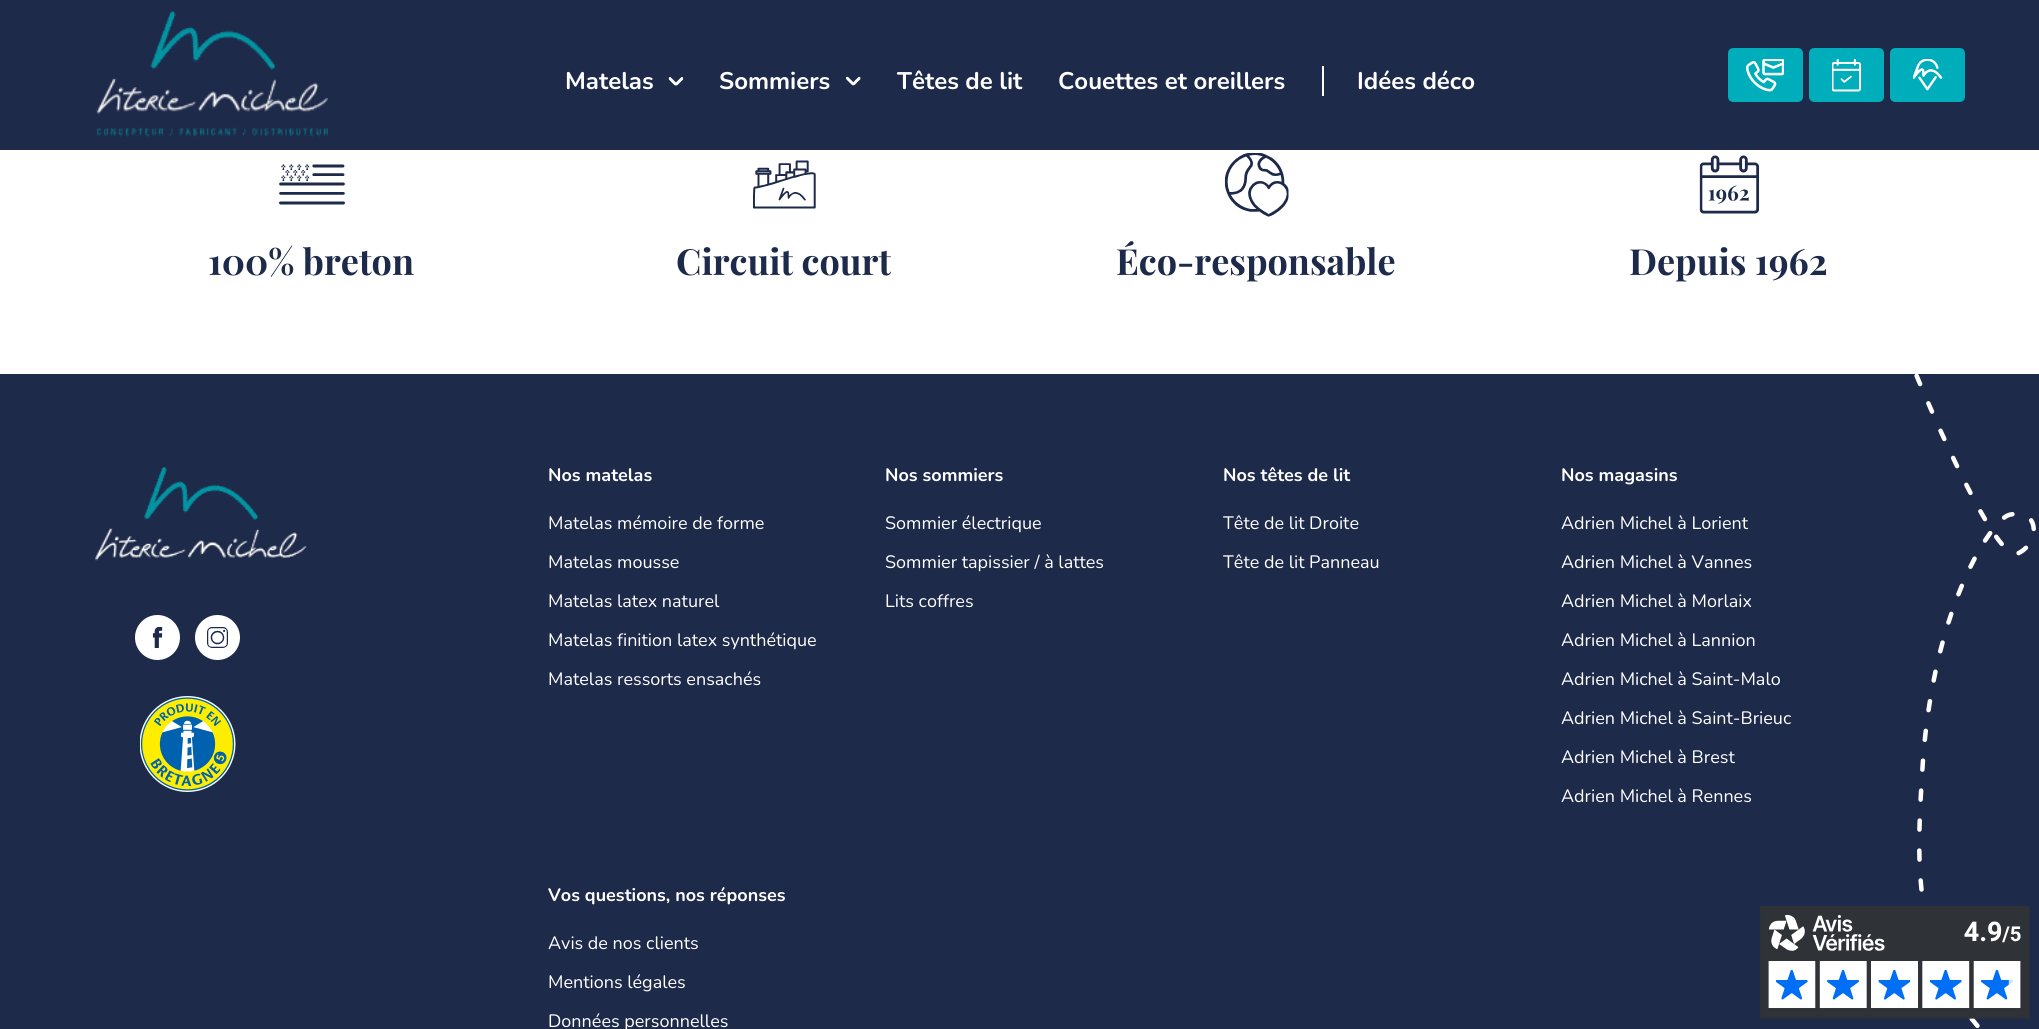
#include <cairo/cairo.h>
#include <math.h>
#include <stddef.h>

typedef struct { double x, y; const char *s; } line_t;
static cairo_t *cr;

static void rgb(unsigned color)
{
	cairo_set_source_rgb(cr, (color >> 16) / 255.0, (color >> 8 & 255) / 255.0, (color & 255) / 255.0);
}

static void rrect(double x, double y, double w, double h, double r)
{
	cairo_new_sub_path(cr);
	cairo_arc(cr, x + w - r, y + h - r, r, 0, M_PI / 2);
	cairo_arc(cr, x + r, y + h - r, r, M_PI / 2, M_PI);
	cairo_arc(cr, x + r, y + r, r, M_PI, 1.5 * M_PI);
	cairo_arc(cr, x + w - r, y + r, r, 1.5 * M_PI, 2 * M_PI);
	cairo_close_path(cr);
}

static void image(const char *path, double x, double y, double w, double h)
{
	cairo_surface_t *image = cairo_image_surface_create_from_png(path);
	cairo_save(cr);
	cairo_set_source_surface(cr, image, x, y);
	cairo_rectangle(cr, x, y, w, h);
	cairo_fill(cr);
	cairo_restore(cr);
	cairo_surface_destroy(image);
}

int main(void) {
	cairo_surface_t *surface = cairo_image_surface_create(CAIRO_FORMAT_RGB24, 2039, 1029);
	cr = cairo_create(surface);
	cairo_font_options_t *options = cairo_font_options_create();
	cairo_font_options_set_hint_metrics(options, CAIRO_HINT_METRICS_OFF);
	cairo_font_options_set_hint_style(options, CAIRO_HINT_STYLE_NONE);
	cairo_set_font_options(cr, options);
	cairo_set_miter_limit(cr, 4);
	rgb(0xffffff);
	cairo_paint(cr);
	rgb(0x1e2a4a);
	cairo_rectangle(cr, 0, 0, 2039, 150);
	cairo_fill(cr);
	image("img/1.png", 96, 11, 232, 126);
	image("img/2.png", 668, 77, 16, 9);
	image("img/3.png", 846, 76, 15, 10);
	rgb(0xffffff);
	cairo_rectangle(cr, 1322, 66, 2, 30);
	cairo_fill(cr);
	rgb(0x00adba);
	rrect(1729.5, 49.5, 72, 51, 3.5);
	cairo_fill_preserve(cr);
	cairo_set_line_width(cr, 3);
	cairo_stroke(cr);
	image("img/4.png", 1746, 59, 38, 33);
	rrect(1810.5, 49.5, 72, 51, 3.5);
	cairo_fill_preserve(cr);
	cairo_stroke(cr);
	image("img/5.png", 1832, 59, 30, 33);
	rrect(1891.5, 49.5, 72, 51, 3.5);
	cairo_fill_preserve(cr);
	cairo_stroke(cr);
	image("img/6.png", 1913, 59, 30, 32);
	image("img/7.png", 279, 164, 66, 41);
	image("img/8.png", 753, 160, 63, 49);
	image("img/9.png", 1224, 153, 65, 64);
	image("img/10.png", 1699, 155, 61, 59);
	rgb(0x1e2a4a);
	cairo_rectangle(cr, 0, 374, 2039, 655);
	cairo_fill(cr);
	image("img/11.png", 1914, 374, 122, 654);
	image("img/12.png", 95, 467, 212, 94);
	rgb(0xffffff);
	cairo_arc(cr, 157.5, 637.5, 22.5, 0, 2 * M_PI);
	cairo_fill(cr);
	image("img/13.png", 152, 627, 11, 21);
	cairo_arc(cr, 217.5, 637.5, 22.5, 0, 2 * M_PI);
	cairo_fill(cr);
	image("img/14.png", 207, 627, 21, 21);
	image("img/15.png", 140, 696, 96, 96);
	image("img/16.png", 1760, 906, 270, 113);
	cairo_select_font_face(cr, "Nunito", CAIRO_FONT_SLANT_NORMAL, CAIRO_FONT_WEIGHT_BOLD);
	cairo_set_font_size(cr, 24);
	{
		static const line_t items[] = {
			{565, 89, "Matelas"},
			{719, 89, "Sommiers"},
			{897, 89, "Têtes de lit"},
			{1058, 89, "Couettes et oreillers"},
			{1357, 89, "Idées déco"},
		};
		for (size_t i = 0; i < sizeof items / sizeof *items; i++) {
			cairo_move_to(cr, items[i].x, items[i].y);
			cairo_show_text(cr, items[i].s);
		}
	}
	cairo_select_font_face(cr, "Playfair Display", CAIRO_FONT_SLANT_NORMAL, CAIRO_FONT_WEIGHT_BOLD);
	cairo_set_font_size(cr, 36);
	rgb(0x1e2a4a);
	{
		static const line_t items[] = {
			{208, 275, "100% breton"},
			{676, 275, "Circuit court"},
			{1116, 275, "Éco-responsable"},
			{1629, 275, "Depuis 1962"},
		};
		for (size_t i = 0; i < sizeof items / sizeof *items; i++) {
			cairo_move_to(cr, items[i].x, items[i].y);
			cairo_show_text(cr, items[i].s);
		}
	}
	cairo_select_font_face(cr, "Nunito", CAIRO_FONT_SLANT_NORMAL, CAIRO_FONT_WEIGHT_BOLD);
	cairo_set_font_size(cr, 18);
	rgb(0xffffff);
	cairo_move_to(cr, 548, 481);
	cairo_show_text(cr, "Nos matelas");
	cairo_select_font_face(cr, "Nunito", CAIRO_FONT_SLANT_NORMAL, CAIRO_FONT_WEIGHT_NORMAL);
	{
		static const line_t items[] = {
			{548, 529, "Matelas mémoire de forme"},
			{548, 568, "Matelas mousse"},
			{548, 607, "Matelas latex naturel"},
			{548, 646, "Matelas finition latex synthétique"},
			{548, 685, "Matelas ressorts ensachés"},
		};
		for (size_t i = 0; i < sizeof items / sizeof *items; i++) {
			cairo_move_to(cr, items[i].x, items[i].y);
			cairo_show_text(cr, items[i].s);
		}
	}
	cairo_select_font_face(cr, "Nunito", CAIRO_FONT_SLANT_NORMAL, CAIRO_FONT_WEIGHT_BOLD);
	cairo_move_to(cr, 885, 481);
	cairo_show_text(cr, "Nos sommiers");
	cairo_select_font_face(cr, "Nunito", CAIRO_FONT_SLANT_NORMAL, CAIRO_FONT_WEIGHT_NORMAL);
	{
		static const line_t items[] = {
			{885, 529, "Sommier électrique"},
			{885, 568, "Sommier tapissier / à lattes"},
			{885, 607, "Lits coffres"},
		};
		for (size_t i = 0; i < sizeof items / sizeof *items; i++) {
			cairo_move_to(cr, items[i].x, items[i].y);
			cairo_show_text(cr, items[i].s);
		}
	}
	cairo_select_font_face(cr, "Nunito", CAIRO_FONT_SLANT_NORMAL, CAIRO_FONT_WEIGHT_BOLD);
	cairo_move_to(cr, 1223, 481);
	cairo_show_text(cr, "Nos têtes de lit");
	cairo_select_font_face(cr, "Nunito", CAIRO_FONT_SLANT_NORMAL, CAIRO_FONT_WEIGHT_NORMAL);
	cairo_move_to(cr, 1223, 529);
	cairo_show_text(cr, "Tête de lit Droite");
	cairo_move_to(cr, 1223, 568);
	cairo_show_text(cr, "Tête de lit Panneau");
	cairo_select_font_face(cr, "Nunito", CAIRO_FONT_SLANT_NORMAL, CAIRO_FONT_WEIGHT_BOLD);
	cairo_move_to(cr, 1561, 481);
	cairo_show_text(cr, "Nos magasins");
	cairo_select_font_face(cr, "Nunito", CAIRO_FONT_SLANT_NORMAL, CAIRO_FONT_WEIGHT_NORMAL);
	{
		static const line_t items[] = {
			{1561, 529, "Adrien Michel à Lorient"},
			{1561, 568, "Adrien Michel à Vannes"},
			{1561, 607, "Adrien Michel à Morlaix"},
			{1561, 646, "Adrien Michel à Lannion"},
			{1561, 685, "Adrien Michel à Saint-Malo"},
			{1561, 724, "Adrien Michel à Saint-Brieuc"},
			{1561, 763, "Adrien Michel à Brest"},
			{1561, 802, "Adrien Michel à Rennes"},
		};
		for (size_t i = 0; i < sizeof items / sizeof *items; i++) {
			cairo_move_to(cr, items[i].x, items[i].y);
			cairo_show_text(cr, items[i].s);
		}
	}
	cairo_select_font_face(cr, "Nunito", CAIRO_FONT_SLANT_NORMAL, CAIRO_FONT_WEIGHT_BOLD);
	cairo_move_to(cr, 548, 901);
	cairo_show_text(cr, "Vos questions, nos réponses");
	cairo_select_font_face(cr, "Nunito", CAIRO_FONT_SLANT_NORMAL, CAIRO_FONT_WEIGHT_NORMAL);
	{
		static const line_t items[] = {
			{548, 949, "Avis de nos clients"},
			{548, 988, "Mentions légales"},
			{548, 1027, "Données personnelles"},
		};
		for (size_t i = 0; i < sizeof items / sizeof *items; i++) {
			cairo_move_to(cr, items[i].x, items[i].y);
			cairo_show_text(cr, items[i].s);
		}
	}
	cairo_surface_write_to_png(surface, "page.png");
	cairo_font_options_destroy(options);
	cairo_destroy(cr);
	cairo_surface_destroy(surface);
	return 0;
}
